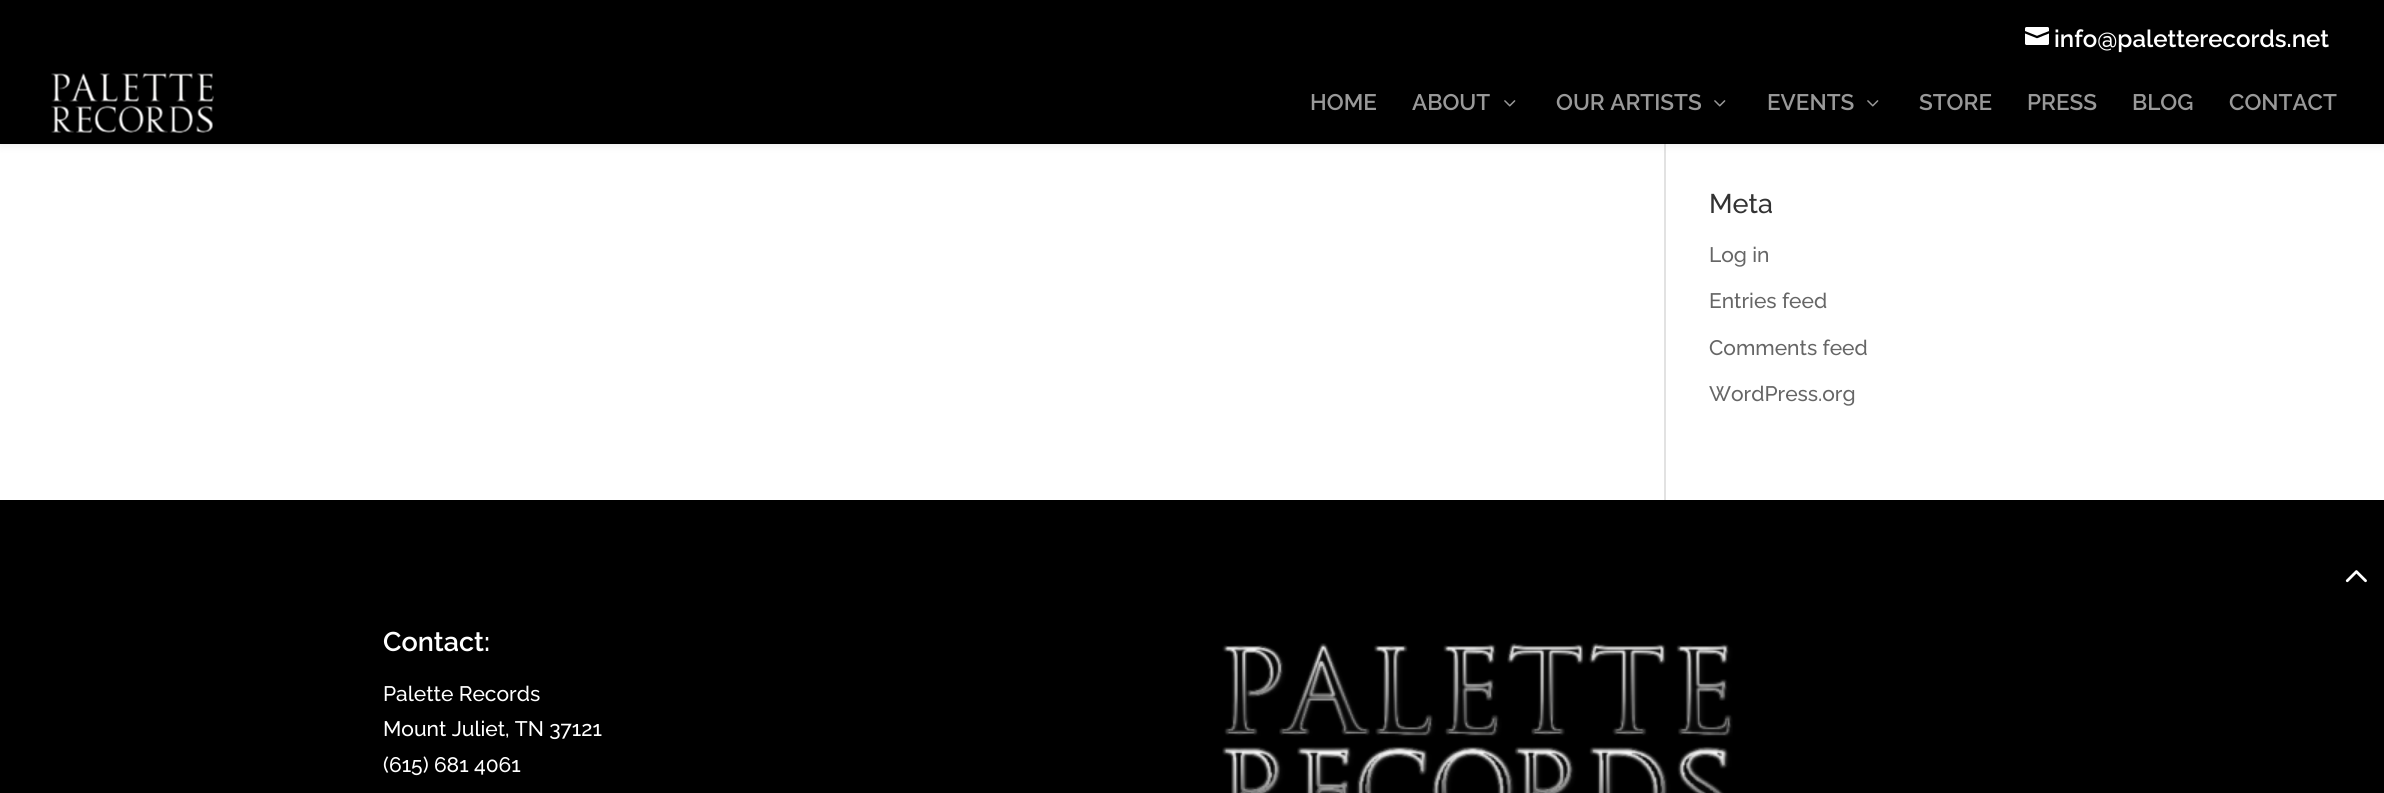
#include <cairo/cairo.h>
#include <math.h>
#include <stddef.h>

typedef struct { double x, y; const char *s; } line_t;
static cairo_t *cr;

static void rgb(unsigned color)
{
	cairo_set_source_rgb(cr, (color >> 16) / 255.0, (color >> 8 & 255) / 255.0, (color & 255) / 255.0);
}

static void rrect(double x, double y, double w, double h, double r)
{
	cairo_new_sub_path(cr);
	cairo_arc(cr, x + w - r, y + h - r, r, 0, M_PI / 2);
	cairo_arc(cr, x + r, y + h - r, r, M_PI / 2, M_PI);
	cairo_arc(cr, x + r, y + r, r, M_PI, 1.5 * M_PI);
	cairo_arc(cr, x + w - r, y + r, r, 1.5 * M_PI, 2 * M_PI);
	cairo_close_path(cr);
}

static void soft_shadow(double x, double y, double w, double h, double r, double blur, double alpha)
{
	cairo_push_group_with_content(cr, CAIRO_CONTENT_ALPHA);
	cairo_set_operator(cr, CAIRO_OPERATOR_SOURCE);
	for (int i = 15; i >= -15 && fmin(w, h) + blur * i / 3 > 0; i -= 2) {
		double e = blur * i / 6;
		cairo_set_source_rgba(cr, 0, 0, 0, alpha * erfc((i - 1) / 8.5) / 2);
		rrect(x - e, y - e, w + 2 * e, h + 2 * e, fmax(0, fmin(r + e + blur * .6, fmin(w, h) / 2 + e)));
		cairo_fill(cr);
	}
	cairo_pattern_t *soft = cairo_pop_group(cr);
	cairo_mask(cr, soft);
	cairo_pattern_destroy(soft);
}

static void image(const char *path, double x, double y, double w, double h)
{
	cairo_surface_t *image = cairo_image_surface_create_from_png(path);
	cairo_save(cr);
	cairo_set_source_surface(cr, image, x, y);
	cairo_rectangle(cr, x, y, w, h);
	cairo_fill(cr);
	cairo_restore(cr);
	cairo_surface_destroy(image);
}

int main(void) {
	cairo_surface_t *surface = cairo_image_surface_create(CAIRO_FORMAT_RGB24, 2384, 793);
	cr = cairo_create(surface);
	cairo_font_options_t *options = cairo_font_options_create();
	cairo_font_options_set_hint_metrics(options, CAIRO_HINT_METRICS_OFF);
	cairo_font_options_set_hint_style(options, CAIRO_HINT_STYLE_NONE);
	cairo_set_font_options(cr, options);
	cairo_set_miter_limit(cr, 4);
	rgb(0xffffff);
	cairo_paint(cr);
	rgb(0xe2e2e2);
	cairo_rectangle(cr, 1664, 144, 2, 356);
	cairo_fill(cr);
	rgb(0x000000);
	soft_shadow(0, 62, 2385, 82, 0, 5, 0.1);
	rgb(0x000000);
	cairo_rectangle(cr, 0, 0, 2384, 144);
	cairo_fill(cr);
	image("img/1.png", 2025, 27, 24, 18);
	image("img/2.png", 51, 73, 163, 61);
	image("img/3.png", 1504, 100, 12, 7);
	image("img/3.png", 1714, 100, 12, 7);
	image("img/3.png", 1867, 100, 12, 7);
	cairo_rectangle(cr, 0, 500, 2384, 293);
	cairo_fill(cr);
	image("img/4.png", 1222, 643, 511, 150);
	image("img/5.png", 2345, 570, 22, 13);
	cairo_select_font_face(cr, "Raleway SemiBold", CAIRO_FONT_SLANT_NORMAL, CAIRO_FONT_WEIGHT_NORMAL);
	cairo_set_font_size(cr, 24);
	rgb(0xffffff);
	cairo_move_to(cr, 2054, 47);
	cairo_show_text(cr, "info@paletterecords.net");
	cairo_set_font_size(cr, 22.5);
	rgb(0x999999);
	{
		static const line_t items[] = {
			{1310, 110, "HOME"},
			{1412, 110, "ABOUT"},
			{1556, 110, "OUR ARTISTS"},
			{1767, 110, "EVENTS"},
			{1919, 110, "STORE"},
			{2027, 110, "PRESS"},
			{2132, 110, "BLOG"},
			{2229, 110, "CONTACT"},
		};
		for (size_t i = 0; i < sizeof items / sizeof *items; i++) {
			cairo_move_to(cr, items[i].x, items[i].y);
			cairo_show_text(cr, items[i].s);
		}
	}
	cairo_select_font_face(cr, "Raleway Medium", CAIRO_FONT_SLANT_NORMAL, CAIRO_FONT_WEIGHT_NORMAL);
	cairo_set_font_size(cr, 27);
	rgb(0x333333);
	cairo_move_to(cr, 1709, 213);
	cairo_show_text(cr, "Meta");
	cairo_set_font_size(cr, 21);
	rgb(0x666666);
	{
		static const line_t items[] = {
			{1709, 262, "Log in"},
			{1709, 308, "Entries feed"},
			{1709, 355, "Comments feed"},
			{1709, 401, "WordPress.org"},
		};
		for (size_t i = 0; i < sizeof items / sizeof *items; i++) {
			cairo_move_to(cr, items[i].x, items[i].y);
			cairo_show_text(cr, items[i].s);
		}
	}
	cairo_select_font_face(cr, "Raleway SemiBold", CAIRO_FONT_SLANT_NORMAL, CAIRO_FONT_WEIGHT_NORMAL);
	cairo_set_font_size(cr, 27);
	rgb(0xffffff);
	cairo_move_to(cr, 383, 651);
	cairo_show_text(cr, "Contact:");
	cairo_select_font_face(cr, "Raleway Medium", CAIRO_FONT_SLANT_NORMAL, CAIRO_FONT_WEIGHT_NORMAL);
	cairo_set_font_size(cr, 21);
	{
		static const line_t items[] = {
			{383, 701, "Palette Records"},
			{383, 736, "Mount Juliet, TN 37121"},
			{383, 772, "(615) 681 4061"},
		};
		for (size_t i = 0; i < sizeof items / sizeof *items; i++) {
			cairo_move_to(cr, items[i].x, items[i].y);
			cairo_show_text(cr, items[i].s);
		}
	}
	cairo_surface_write_to_png(surface, "page.png");
	cairo_font_options_destroy(options);
	cairo_destroy(cr);
	cairo_surface_destroy(surface);
	return 0;
}
